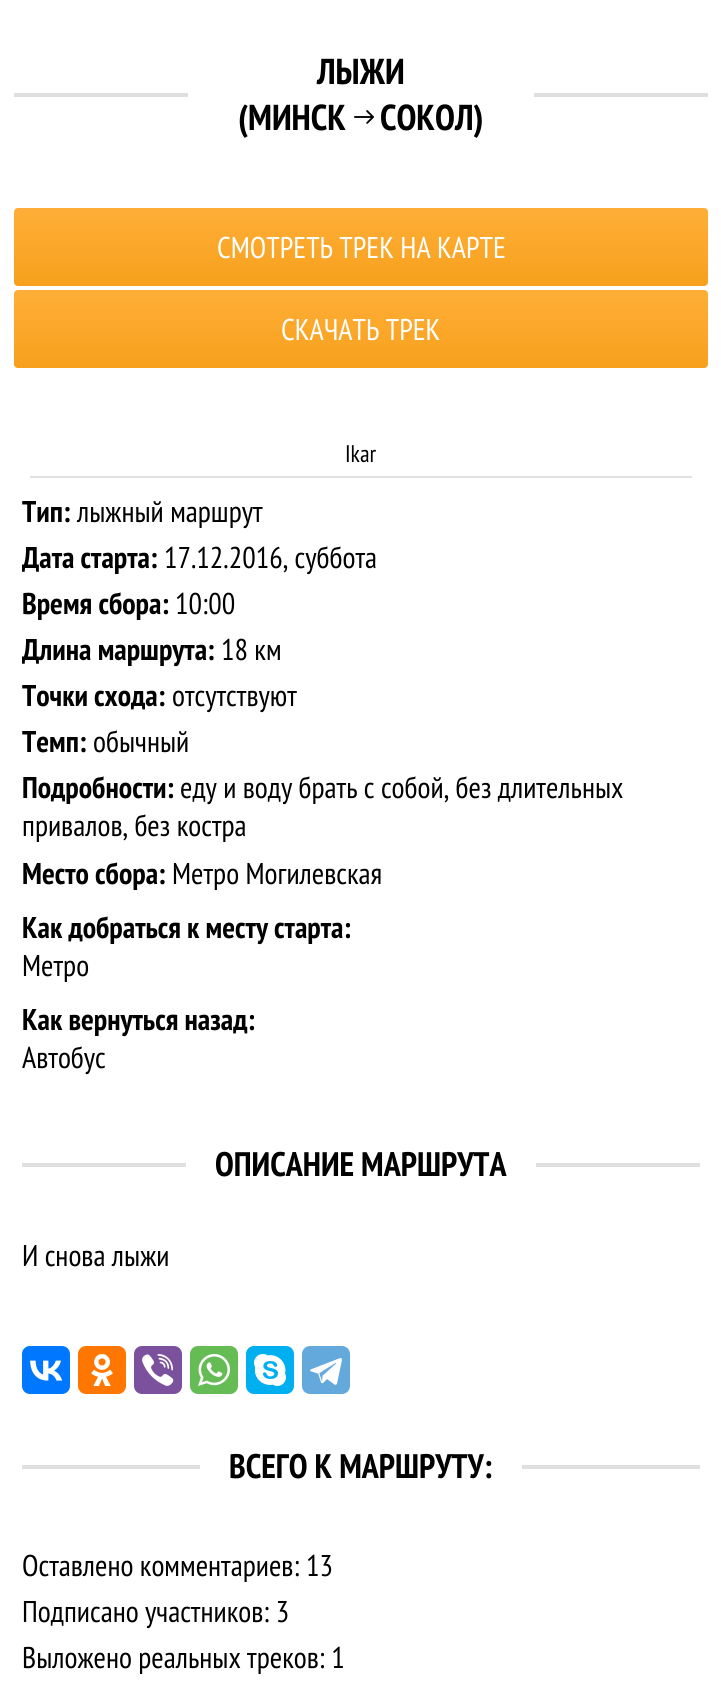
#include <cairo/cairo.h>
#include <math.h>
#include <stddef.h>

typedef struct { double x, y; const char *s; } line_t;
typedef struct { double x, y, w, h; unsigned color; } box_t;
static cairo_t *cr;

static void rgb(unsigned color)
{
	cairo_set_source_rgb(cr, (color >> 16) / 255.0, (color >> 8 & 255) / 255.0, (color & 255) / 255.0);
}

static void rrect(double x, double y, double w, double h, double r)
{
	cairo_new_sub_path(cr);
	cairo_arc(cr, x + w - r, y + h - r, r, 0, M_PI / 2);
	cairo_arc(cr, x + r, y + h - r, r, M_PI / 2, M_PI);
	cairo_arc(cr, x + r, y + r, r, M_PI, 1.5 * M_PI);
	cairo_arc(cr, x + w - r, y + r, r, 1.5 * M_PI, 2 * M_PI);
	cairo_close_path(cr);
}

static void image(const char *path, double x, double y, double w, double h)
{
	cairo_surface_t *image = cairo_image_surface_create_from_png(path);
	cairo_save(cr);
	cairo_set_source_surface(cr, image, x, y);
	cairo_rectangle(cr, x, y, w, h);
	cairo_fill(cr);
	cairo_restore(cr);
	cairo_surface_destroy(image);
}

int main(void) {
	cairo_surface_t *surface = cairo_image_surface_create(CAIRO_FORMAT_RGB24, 721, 1698);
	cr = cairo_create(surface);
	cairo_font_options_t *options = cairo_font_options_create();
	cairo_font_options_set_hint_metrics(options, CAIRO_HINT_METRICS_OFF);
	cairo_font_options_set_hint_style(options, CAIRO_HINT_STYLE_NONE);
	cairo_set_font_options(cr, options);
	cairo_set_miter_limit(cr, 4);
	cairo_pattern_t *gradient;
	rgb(0xffffff);
	cairo_paint(cr);
	rgb(0xdfdfdf);
	cairo_rectangle(cr, 14, 93, 694, 4);
	cairo_fill(cr);
	rgb(0xffffff);
	cairo_rectangle(cr, 188, 93, 346, 4);
	cairo_fill(cr);
	image("img/1.png", 354, 110, 20, 14);
	gradient = cairo_pattern_create_linear(361, 208, 361, 286);
	cairo_pattern_add_color_stop_rgba(gradient, 0.05, 0.996, 0.682, 0.212, 1);
	cairo_pattern_add_color_stop_rgba(gradient, 1, 0.969, 0.627, 0.114, 1);
	cairo_set_source(cr, gradient);
	cairo_pattern_destroy(gradient);
	rrect(14, 208, 694, 78, 4);
	cairo_fill(cr);
	gradient = cairo_pattern_create_linear(361, 290, 361, 368);
	cairo_pattern_add_color_stop_rgba(gradient, 0.05, 0.996, 0.682, 0.212, 1);
	cairo_pattern_add_color_stop_rgba(gradient, 1, 0.969, 0.627, 0.114, 1);
	cairo_set_source(cr, gradient);
	cairo_pattern_destroy(gradient);
	rrect(14, 290, 694, 78, 4);
	cairo_fill(cr);
	{
		static const box_t items[] = {
			{30, 476, 662, 2, 0xe1e1e1},
			{22, 1163, 678, 4, 0xdfdfdf},
			{186, 1163, 350, 4, 0xffffff},
		};
		for (size_t i = 0; i < sizeof items / sizeof *items; i++) {
			rgb(items[i].color);
			cairo_rectangle(cr, items[i].x, items[i].y, items[i].w, items[i].h);
			cairo_fill(cr);
		}
	}
	rgb(0x0077ff);
	rrect(22, 1346, 48, 48, 8);
	cairo_fill(cr);
	image("img/2.png", 30, 1360, 33, 21);
	rgb(0xff7700);
	rrect(78, 1346, 48, 48, 8);
	cairo_fill(cr);
	image("img/3.png", 91, 1354, 22, 32);
	rgb(0x7b519d);
	rrect(134, 1346, 48, 48, 8);
	cairo_fill(cr);
	image("img/4.png", 142, 1354, 32, 32);
	rgb(0x65bc54);
	rrect(190, 1346, 48, 48, 8);
	cairo_fill(cr);
	image("img/5.png", 198, 1354, 32, 32);
	rgb(0x00aff0);
	rrect(246, 1346, 48, 48, 8);
	cairo_fill(cr);
	image("img/6.png", 254, 1354, 32, 32);
	rgb(0x64a9dc);
	rrect(302, 1346, 48, 48, 8);
	cairo_fill(cr);
	image("img/7.png", 310, 1358, 32, 27);
	rgb(0xdfdfdf);
	cairo_rectangle(cr, 22, 1465, 678, 4);
	cairo_fill(cr);
	rgb(0xffffff);
	cairo_rectangle(cr, 200, 1465, 322, 4);
	cairo_fill(cr);
	cairo_select_font_face(cr, "PT Sans Narrow", CAIRO_FONT_SLANT_NORMAL, CAIRO_FONT_WEIGHT_BOLD);
	cairo_set_font_size(cr, 36);
	rgb(0x000000);
	{
		static const line_t items[] = {
			{317, 84, "ЛЫЖИ"},
			{238, 130, "(МИНСК"},
			{380, 130, "СОКОЛ)"},
		};
		for (size_t i = 0; i < sizeof items / sizeof *items; i++) {
			cairo_move_to(cr, items[i].x, items[i].y);
			cairo_show_text(cr, items[i].s);
		}
	}
	cairo_select_font_face(cr, "PT Sans Narrow", CAIRO_FONT_SLANT_NORMAL, CAIRO_FONT_WEIGHT_NORMAL);
	cairo_set_font_size(cr, 30);
	rgb(0xffffff);
	cairo_move_to(cr, 217, 258);
	cairo_show_text(cr, "СМОТРЕТЬ ТРЕК НА КАРТЕ");
	cairo_move_to(cr, 281, 340);
	cairo_show_text(cr, "СКАЧАТЬ ТРЕК");
	cairo_set_font_size(cr, 24);
	rgb(0x000000);
	cairo_move_to(cr, 345, 462);
	cairo_show_text(cr, "Ikar");
	cairo_select_font_face(cr, "PT Sans Narrow", CAIRO_FONT_SLANT_NORMAL, CAIRO_FONT_WEIGHT_BOLD);
	cairo_set_font_size(cr, 30);
	cairo_move_to(cr, 22, 522);
	cairo_show_text(cr, "Тип:");
	cairo_select_font_face(cr, "PT Sans Narrow", CAIRO_FONT_SLANT_NORMAL, CAIRO_FONT_WEIGHT_NORMAL);
	cairo_move_to(cr, 77, 522);
	cairo_show_text(cr, "лыжный маршрут");
	cairo_select_font_face(cr, "PT Sans Narrow", CAIRO_FONT_SLANT_NORMAL, CAIRO_FONT_WEIGHT_BOLD);
	cairo_move_to(cr, 22, 568);
	cairo_show_text(cr, "Дата старта:");
	cairo_select_font_face(cr, "PT Sans Narrow", CAIRO_FONT_SLANT_NORMAL, CAIRO_FONT_WEIGHT_NORMAL);
	cairo_move_to(cr, 164, 568);
	cairo_show_text(cr, "17.12.2016, суббота");
	cairo_select_font_face(cr, "PT Sans Narrow", CAIRO_FONT_SLANT_NORMAL, CAIRO_FONT_WEIGHT_BOLD);
	cairo_move_to(cr, 22, 614);
	cairo_show_text(cr, "Время сбора:");
	cairo_select_font_face(cr, "PT Sans Narrow", CAIRO_FONT_SLANT_NORMAL, CAIRO_FONT_WEIGHT_NORMAL);
	cairo_move_to(cr, 175, 614);
	cairo_show_text(cr, "10:00");
	cairo_select_font_face(cr, "PT Sans Narrow", CAIRO_FONT_SLANT_NORMAL, CAIRO_FONT_WEIGHT_BOLD);
	cairo_move_to(cr, 22, 660);
	cairo_show_text(cr, "Длина маршрута:");
	cairo_select_font_face(cr, "PT Sans Narrow", CAIRO_FONT_SLANT_NORMAL, CAIRO_FONT_WEIGHT_NORMAL);
	cairo_move_to(cr, 221, 660);
	cairo_show_text(cr, "18 км");
	cairo_select_font_face(cr, "PT Sans Narrow", CAIRO_FONT_SLANT_NORMAL, CAIRO_FONT_WEIGHT_BOLD);
	cairo_move_to(cr, 22, 706);
	cairo_show_text(cr, "Точки схода:");
	cairo_select_font_face(cr, "PT Sans Narrow", CAIRO_FONT_SLANT_NORMAL, CAIRO_FONT_WEIGHT_NORMAL);
	cairo_move_to(cr, 172, 706);
	cairo_show_text(cr, "отсутствуют");
	cairo_select_font_face(cr, "PT Sans Narrow", CAIRO_FONT_SLANT_NORMAL, CAIRO_FONT_WEIGHT_BOLD);
	cairo_move_to(cr, 22, 752);
	cairo_show_text(cr, "Темп:");
	cairo_select_font_face(cr, "PT Sans Narrow", CAIRO_FONT_SLANT_NORMAL, CAIRO_FONT_WEIGHT_NORMAL);
	cairo_move_to(cr, 93, 752);
	cairo_show_text(cr, "обычный");
	cairo_select_font_face(cr, "PT Sans Narrow", CAIRO_FONT_SLANT_NORMAL, CAIRO_FONT_WEIGHT_BOLD);
	cairo_move_to(cr, 22, 798);
	cairo_show_text(cr, "Подробности:");
	cairo_select_font_face(cr, "PT Sans Narrow", CAIRO_FONT_SLANT_NORMAL, CAIRO_FONT_WEIGHT_NORMAL);
	cairo_move_to(cr, 180, 798);
	cairo_show_text(cr, "еду и воду брать с собой, без длительных");
	cairo_move_to(cr, 22, 836);
	cairo_show_text(cr, "привалов, без костра");
	cairo_select_font_face(cr, "PT Sans Narrow", CAIRO_FONT_SLANT_NORMAL, CAIRO_FONT_WEIGHT_BOLD);
	cairo_move_to(cr, 22, 884);
	cairo_show_text(cr, "Место сбора:");
	cairo_select_font_face(cr, "PT Sans Narrow", CAIRO_FONT_SLANT_NORMAL, CAIRO_FONT_WEIGHT_NORMAL);
	cairo_move_to(cr, 172, 884);
	cairo_show_text(cr, "Метро Могилевская");
	cairo_select_font_face(cr, "PT Sans Narrow", CAIRO_FONT_SLANT_NORMAL, CAIRO_FONT_WEIGHT_BOLD);
	cairo_move_to(cr, 22, 938);
	cairo_show_text(cr, "Как добраться к месту старта:");
	cairo_select_font_face(cr, "PT Sans Narrow", CAIRO_FONT_SLANT_NORMAL, CAIRO_FONT_WEIGHT_NORMAL);
	cairo_move_to(cr, 22, 976);
	cairo_show_text(cr, "Метро");
	cairo_select_font_face(cr, "PT Sans Narrow", CAIRO_FONT_SLANT_NORMAL, CAIRO_FONT_WEIGHT_BOLD);
	cairo_move_to(cr, 22, 1030);
	cairo_show_text(cr, "Как вернуться назад:");
	cairo_select_font_face(cr, "PT Sans Narrow", CAIRO_FONT_SLANT_NORMAL, CAIRO_FONT_WEIGHT_NORMAL);
	cairo_move_to(cr, 22, 1068);
	cairo_show_text(cr, "Автобус");
	cairo_select_font_face(cr, "PT Sans Narrow", CAIRO_FONT_SLANT_NORMAL, CAIRO_FONT_WEIGHT_BOLD);
	cairo_set_font_size(cr, 34);
	cairo_move_to(cr, 215, 1176);
	cairo_show_text(cr, "ОПИСАНИЕ МАРШРУТА");
	cairo_select_font_face(cr, "PT Sans Narrow", CAIRO_FONT_SLANT_NORMAL, CAIRO_FONT_WEIGHT_NORMAL);
	cairo_set_font_size(cr, 30);
	cairo_move_to(cr, 22, 1266);
	cairo_show_text(cr, "И снова лыжи");
	cairo_select_font_face(cr, "PT Sans Narrow", CAIRO_FONT_SLANT_NORMAL, CAIRO_FONT_WEIGHT_BOLD);
	cairo_set_font_size(cr, 34);
	cairo_move_to(cr, 229, 1478);
	cairo_show_text(cr, "ВСЕГО К МАРШРУТУ:");
	cairo_select_font_face(cr, "PT Sans Narrow", CAIRO_FONT_SLANT_NORMAL, CAIRO_FONT_WEIGHT_NORMAL);
	cairo_set_font_size(cr, 30);
	{
		static const line_t items[] = {
			{22, 1576, "Оставлено комментариев: 13"},
			{22, 1622, "Подписано участников: 3"},
			{22, 1668, "Выложено реальных треков: 1"},
		};
		for (size_t i = 0; i < sizeof items / sizeof *items; i++) {
			cairo_move_to(cr, items[i].x, items[i].y);
			cairo_show_text(cr, items[i].s);
		}
	}
	cairo_surface_write_to_png(surface, "page.png");
	cairo_font_options_destroy(options);
	cairo_destroy(cr);
	cairo_surface_destroy(surface);
	return 0;
}
